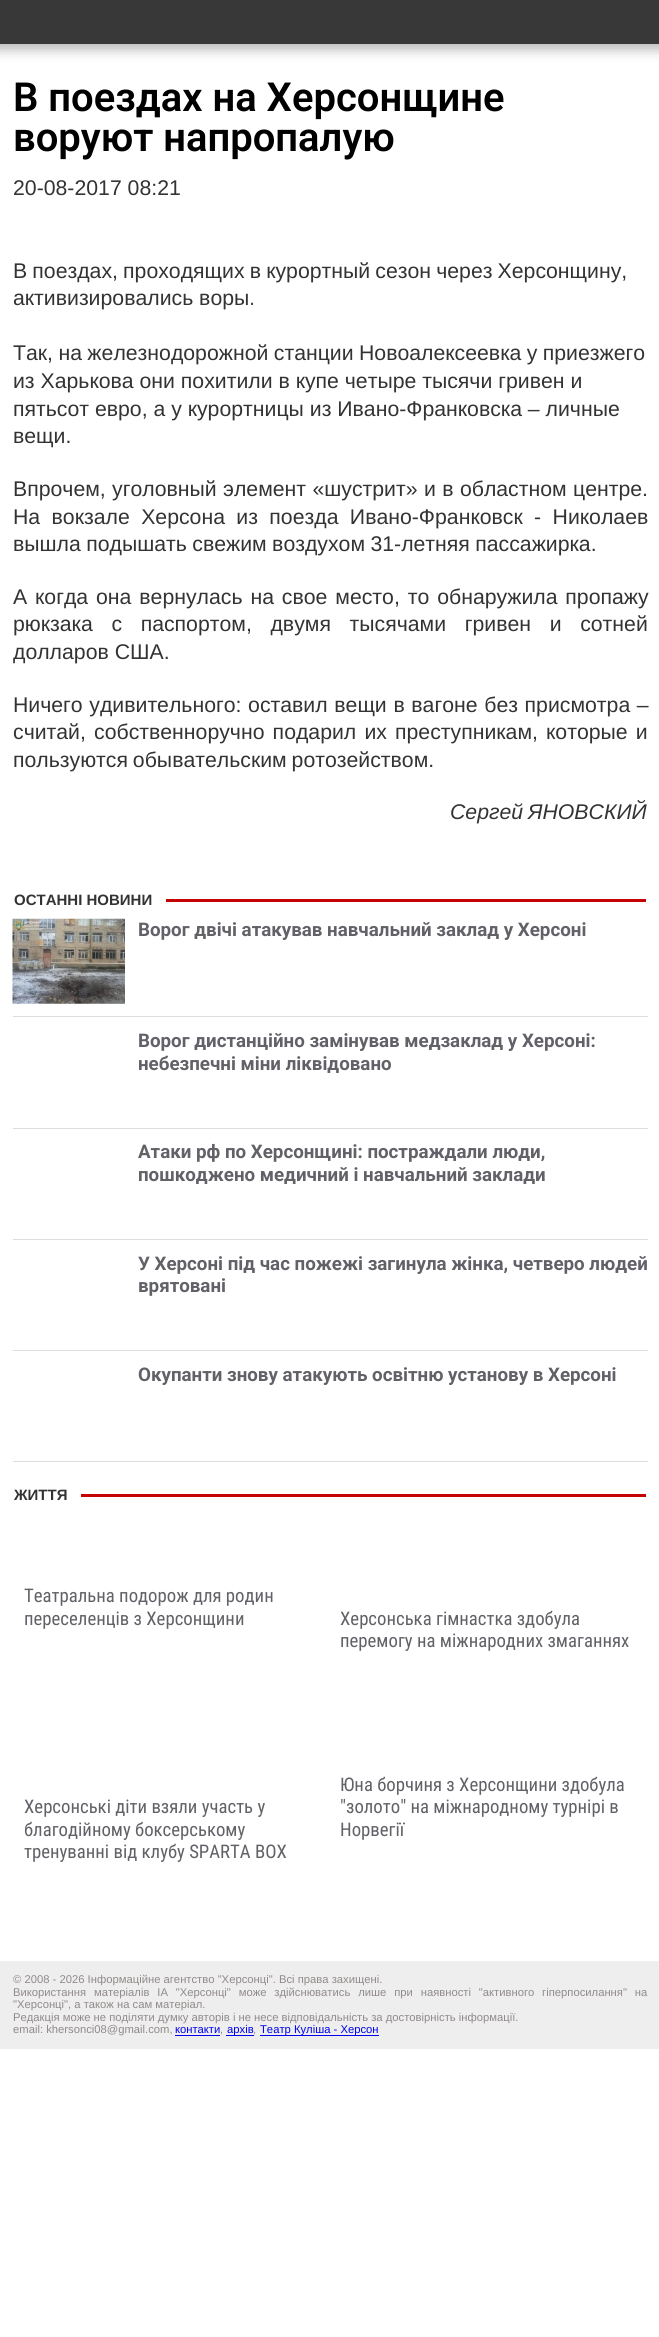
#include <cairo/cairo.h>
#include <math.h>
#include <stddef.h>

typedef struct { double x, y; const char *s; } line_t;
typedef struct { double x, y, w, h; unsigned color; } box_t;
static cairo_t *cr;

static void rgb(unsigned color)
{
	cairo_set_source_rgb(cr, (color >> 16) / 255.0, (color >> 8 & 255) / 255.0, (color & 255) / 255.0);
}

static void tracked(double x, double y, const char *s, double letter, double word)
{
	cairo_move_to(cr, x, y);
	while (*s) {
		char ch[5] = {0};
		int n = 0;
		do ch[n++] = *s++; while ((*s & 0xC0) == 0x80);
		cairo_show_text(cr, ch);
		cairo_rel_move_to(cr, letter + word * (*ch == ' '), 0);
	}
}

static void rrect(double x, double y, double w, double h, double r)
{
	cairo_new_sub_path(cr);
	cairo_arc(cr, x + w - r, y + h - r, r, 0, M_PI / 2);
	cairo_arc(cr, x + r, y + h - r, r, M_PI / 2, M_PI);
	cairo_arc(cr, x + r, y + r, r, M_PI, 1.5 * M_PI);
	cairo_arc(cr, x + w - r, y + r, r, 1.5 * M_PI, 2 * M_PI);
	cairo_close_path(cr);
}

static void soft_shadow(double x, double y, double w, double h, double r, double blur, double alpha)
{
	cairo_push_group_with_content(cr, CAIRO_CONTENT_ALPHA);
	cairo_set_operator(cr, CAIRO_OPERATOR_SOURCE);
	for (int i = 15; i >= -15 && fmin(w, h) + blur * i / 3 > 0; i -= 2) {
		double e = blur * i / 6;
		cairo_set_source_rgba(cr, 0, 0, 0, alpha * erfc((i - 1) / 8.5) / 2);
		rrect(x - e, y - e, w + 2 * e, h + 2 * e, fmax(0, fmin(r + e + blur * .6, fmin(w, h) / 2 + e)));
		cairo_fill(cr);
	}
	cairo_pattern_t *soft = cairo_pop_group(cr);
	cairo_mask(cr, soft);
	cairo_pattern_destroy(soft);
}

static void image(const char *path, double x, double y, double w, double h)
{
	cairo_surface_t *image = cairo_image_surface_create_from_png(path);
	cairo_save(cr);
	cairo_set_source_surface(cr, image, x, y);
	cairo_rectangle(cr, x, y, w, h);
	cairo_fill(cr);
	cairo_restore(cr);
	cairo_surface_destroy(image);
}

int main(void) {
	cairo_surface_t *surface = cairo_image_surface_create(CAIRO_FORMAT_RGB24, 659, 2337);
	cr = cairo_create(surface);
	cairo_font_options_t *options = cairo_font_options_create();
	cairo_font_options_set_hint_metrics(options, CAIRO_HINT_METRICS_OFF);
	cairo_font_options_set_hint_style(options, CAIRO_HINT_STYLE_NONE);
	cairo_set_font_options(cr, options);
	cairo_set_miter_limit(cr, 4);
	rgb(0xffffff);
	cairo_paint(cr);
	rgb(0x1a1a1a);
	soft_shadow(-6, -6, 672, 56, 0, 6, 0.3);
	rgb(0x383838);
	cairo_rectangle(cr, 0, 0, 659, 44);
	cairo_fill(cr);
	rgb(0xc60304);
	cairo_rectangle(cr, 166, 899, 480, 3);
	cairo_fill(cr);
	image("img/1.png", 12, 918, 113, 86);
	{
		static const box_t items[] = {
			{13, 1016, 635, 1, 0xdddddd},
			{13, 1128, 635, 1, 0xdddddd},
			{13, 1239, 635, 1, 0xdddddd},
			{13, 1350, 635, 1, 0xdddddd},
			{13, 1461, 635, 1, 0xdddddd},
			{81, 1494, 565, 3, 0xc60304},
			{0, 1961, 659, 88, 0xeeeeee},
			{175, 2035, 45, 1, 0x0000ee},
			{226, 2035, 28, 1, 0x0000ee},
			{260, 2035, 119, 1, 0x0000ee},
		};
		for (size_t i = 0; i < sizeof items / sizeof *items; i++) {
			rgb(items[i].color);
			cairo_rectangle(cr, items[i].x, items[i].y, items[i].w, items[i].h);
			cairo_fill(cr);
		}
	}
	cairo_select_font_face(cr, "Roboto SemiBold", CAIRO_FONT_SLANT_NORMAL, CAIRO_FONT_WEIGHT_NORMAL);
	cairo_set_font_size(cr, 40);
	rgb(0x000000);
	cairo_move_to(cr, 13, 111);
	cairo_show_text(cr, "В поездах на Херсонщине");
	cairo_move_to(cr, 13, 151);
	cairo_show_text(cr, "воруют напропалую");
	cairo_select_font_face(cr, "Liberation Sans", CAIRO_FONT_SLANT_NORMAL, CAIRO_FONT_WEIGHT_NORMAL);
	cairo_set_font_size(cr, 21.25);
	rgb(0x333333);
	cairo_move_to(cr, 13, 195);
	cairo_show_text(cr, "20-08-2017 08:21");
	tracked(13, 278, "В поездах, проходящих в курортный сезон через Херсонщину,", 0, -0.75);
	cairo_move_to(cr, 13, 305);
	cairo_show_text(cr, "активизировались воры.");
	tracked(13, 360, "Так, на железнодорожной станции Новоалексеевка у приезжего", 0, -0.5);
	{
		static const line_t items[] = {
			{13, 388, "из Харькова они похитили в купе четыре тысячи гривен и"},
			{13, 416, "пятьсот евро, а у курортницы из Ивано-Франковска – личные"},
			{13, 443, "вещи."},
		};
		for (size_t i = 0; i < sizeof items / sizeof *items; i++) {
			cairo_move_to(cr, items[i].x, items[i].y);
			cairo_show_text(cr, items[i].s);
		}
	}
	tracked(13, 496, "Впрочем, уголовный элемент «шустрит» и в областном центре.", 0, 0.5);
	tracked(13, 524, "На вокзале Херсона из поезда Ивано-Франковск - Николаев", 0, 5.5);
	tracked(13, 551, "вышла подышать свежим воздухом 31-летняя пассажирка.", 0, -0.5);
	tracked(13, 604, "А когда она вернулась на свое место, то обнаружила пропажу", 0, 2);
	tracked(13, 631, "рюкзака с паспортом, двумя тысячами гривен и сотней", 0, 12.75);
	cairo_move_to(cr, 13, 659);
	cairo_show_text(cr, "долларов США.");
	tracked(13, 712, "Ничего удивительного: оставил вещи в вагоне без присмотра –", 0, 0.75);
	tracked(13, 739, "считай, собственноручно подарил их преступникам, которые и", 0, 2.25);
	tracked(13, 767, "пользуются обывательским ротозейством.", 0, -1);
	cairo_select_font_face(cr, "Liberation Sans", CAIRO_FONT_SLANT_ITALIC, CAIRO_FONT_WEIGHT_NORMAL);
	tracked(450, 819, "Сергей ЯНОВСКИЙ", 0, -1);
	cairo_select_font_face(cr, "Liberation Sans", CAIRO_FONT_SLANT_NORMAL, CAIRO_FONT_WEIGHT_BOLD);
	cairo_set_font_size(cr, 15);
	cairo_move_to(cr, 14, 905);
	cairo_show_text(cr, "ОСТАННІ НОВИНИ");
	cairo_select_font_face(cr, "Roboto", CAIRO_FONT_SLANT_NORMAL, CAIRO_FONT_WEIGHT_BOLD);
	cairo_set_font_size(cr, 18.75);
	rgb(0x616167);
	{
		static const line_t items[] = {
			{138, 936, "Ворог двічі атакував навчальний заклад у Херсоні"},
			{138, 1047, "Ворог дистанційно замінував медзаклад у Херсоні:"},
			{138, 1070, "небезпечні міни ліквідовано"},
			{138, 1158, "Атаки рф по Херсонщині: постраждали люди,"},
			{138, 1181, "пошкоджено медичний і навчальний заклади"},
			{138, 1270, "У Херсоні під час пожежі загинула жінка, четверо людей"},
			{138, 1292, "врятовані"},
			{138, 1381, "Окупанти знову атакують освітню установу в Херсоні"},
		};
		for (size_t i = 0; i < sizeof items / sizeof *items; i++) {
			cairo_move_to(cr, items[i].x, items[i].y);
			cairo_show_text(cr, items[i].s);
		}
	}
	cairo_select_font_face(cr, "Liberation Sans", CAIRO_FONT_SLANT_NORMAL, CAIRO_FONT_WEIGHT_BOLD);
	cairo_set_font_size(cr, 15);
	rgb(0x333333);
	cairo_move_to(cr, 14, 1500);
	cairo_show_text(cr, "ЖИТТЯ");
	cairo_select_font_face(cr, "Roboto Condensed", CAIRO_FONT_SLANT_NORMAL, CAIRO_FONT_WEIGHT_NORMAL);
	cairo_set_font_size(cr, 18.75);
	rgb(0x616167);
	{
		static const line_t items[] = {
			{24, 1602, "Театральна подорож для родин"},
			{24, 1625, "переселенців з Херсонщини"},
			{340, 1625, "Херсонська гімнастка здобула"},
			{340, 1647, "перемогу на міжнародних змаганнях"},
			{24, 1813, "Херсонські діти взяли участь у"},
			{24, 1836, "благодійному боксерському"},
			{24, 1858, "тренуванні від клубу SPARTA BOX"},
			{340, 1791, "Юна борчиня з Херсонщини здобула"},
			{340, 1813, "\"золото\" на міжнародному турнірі в"},
			{340, 1836, "Норвегії"},
		};
		for (size_t i = 0; i < sizeof items / sizeof *items; i++) {
			cairo_move_to(cr, items[i].x, items[i].y);
			cairo_show_text(cr, items[i].s);
		}
	}
	cairo_select_font_face(cr, "Liberation Sans", CAIRO_FONT_SLANT_NORMAL, CAIRO_FONT_WEIGHT_NORMAL);
	cairo_set_font_size(cr, 11.25);
	rgb(0x918a8a);
	cairo_move_to(cr, 13, 1983);
	cairo_show_text(cr, "© 2008 - 2026 Інформаційне агентство \"Херсонці\". Всі права захищені.");
	tracked(13, 1996, "Використання матеріалів ІА \"Херсонці\" може здійснюватись лише при наявності \"активного гіперпосилання\" на", 0, 4.75);
	{
		static const line_t items[] = {
			{13, 2008, "\"Херсонці\", а також на сам матеріал."},
			{13, 2021, "Редакція може не поділяти думку авторів і не несе відповідальність за достовірність інформації."},
			{13, 2033, "email: khersonci08@gmail.com,"},
		};
		for (size_t i = 0; i < sizeof items / sizeof *items; i++) {
			cairo_move_to(cr, items[i].x, items[i].y);
			cairo_show_text(cr, items[i].s);
		}
	}
	rgb(0x0000ee);
	cairo_move_to(cr, 175, 2033);
	cairo_show_text(cr, "контакти");
	rgb(0x918a8a);
	cairo_move_to(cr, 220, 2033);
	cairo_show_text(cr, ",");
	rgb(0x0000ee);
	cairo_move_to(cr, 227, 2033);
	cairo_show_text(cr, "архів");
	rgb(0x918a8a);
	cairo_move_to(cr, 253, 2033);
	cairo_show_text(cr, ",");
	rgb(0x0000ee);
	cairo_move_to(cr, 260, 2033);
	cairo_show_text(cr, "Театр Куліша - Херсон");
	cairo_surface_write_to_png(surface, "page.png");
	cairo_font_options_destroy(options);
	cairo_destroy(cr);
	cairo_surface_destroy(surface);
	return 0;
}
